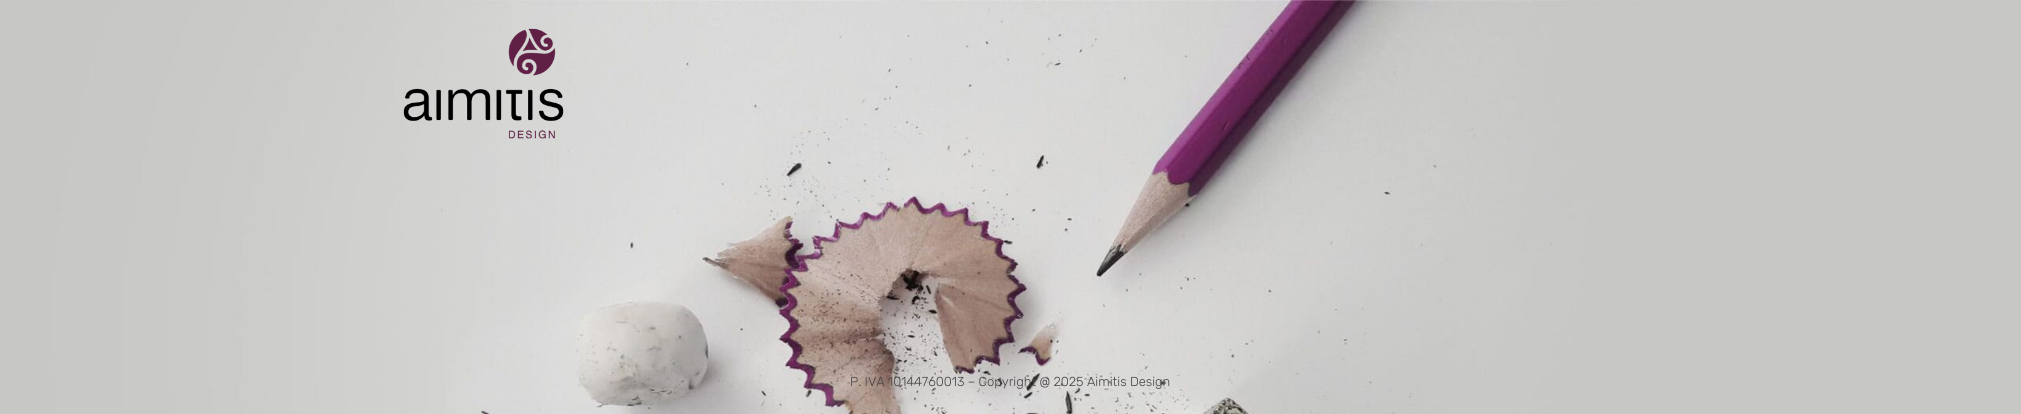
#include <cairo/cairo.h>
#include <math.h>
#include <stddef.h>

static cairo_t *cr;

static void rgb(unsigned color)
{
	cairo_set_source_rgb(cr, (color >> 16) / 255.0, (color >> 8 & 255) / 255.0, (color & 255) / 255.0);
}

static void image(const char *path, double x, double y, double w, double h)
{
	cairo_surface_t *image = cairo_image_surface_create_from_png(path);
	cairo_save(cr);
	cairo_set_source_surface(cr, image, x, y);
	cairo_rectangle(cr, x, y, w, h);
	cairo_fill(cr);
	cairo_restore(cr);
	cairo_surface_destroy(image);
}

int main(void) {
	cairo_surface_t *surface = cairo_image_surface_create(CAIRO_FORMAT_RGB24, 2021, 414);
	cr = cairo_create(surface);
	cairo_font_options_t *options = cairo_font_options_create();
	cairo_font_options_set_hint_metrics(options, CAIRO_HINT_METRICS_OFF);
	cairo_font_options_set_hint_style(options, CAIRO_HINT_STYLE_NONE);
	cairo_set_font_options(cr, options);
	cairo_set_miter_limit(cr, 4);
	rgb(0xffffff);
	cairo_paint(cr);
	image("img/1.png", 0, 0, 2021, 414);
	image("img/2.png", 403, 28, 161, 111);
	cairo_select_font_face(cr, "Rubik Light", CAIRO_FONT_SLANT_NORMAL, CAIRO_FONT_WEIGHT_NORMAL);
	cairo_set_font_size(cr, 13);
	rgb(0x444444);
	cairo_move_to(cr, 850, 386);
	cairo_show_text(cr, "P. IVA 10144760013 – Copyright @ 2025 Aimitis Design");
	cairo_surface_write_to_png(surface, "page.png");
	cairo_font_options_destroy(options);
	cairo_destroy(cr);
	cairo_surface_destroy(surface);
	return 0;
}
